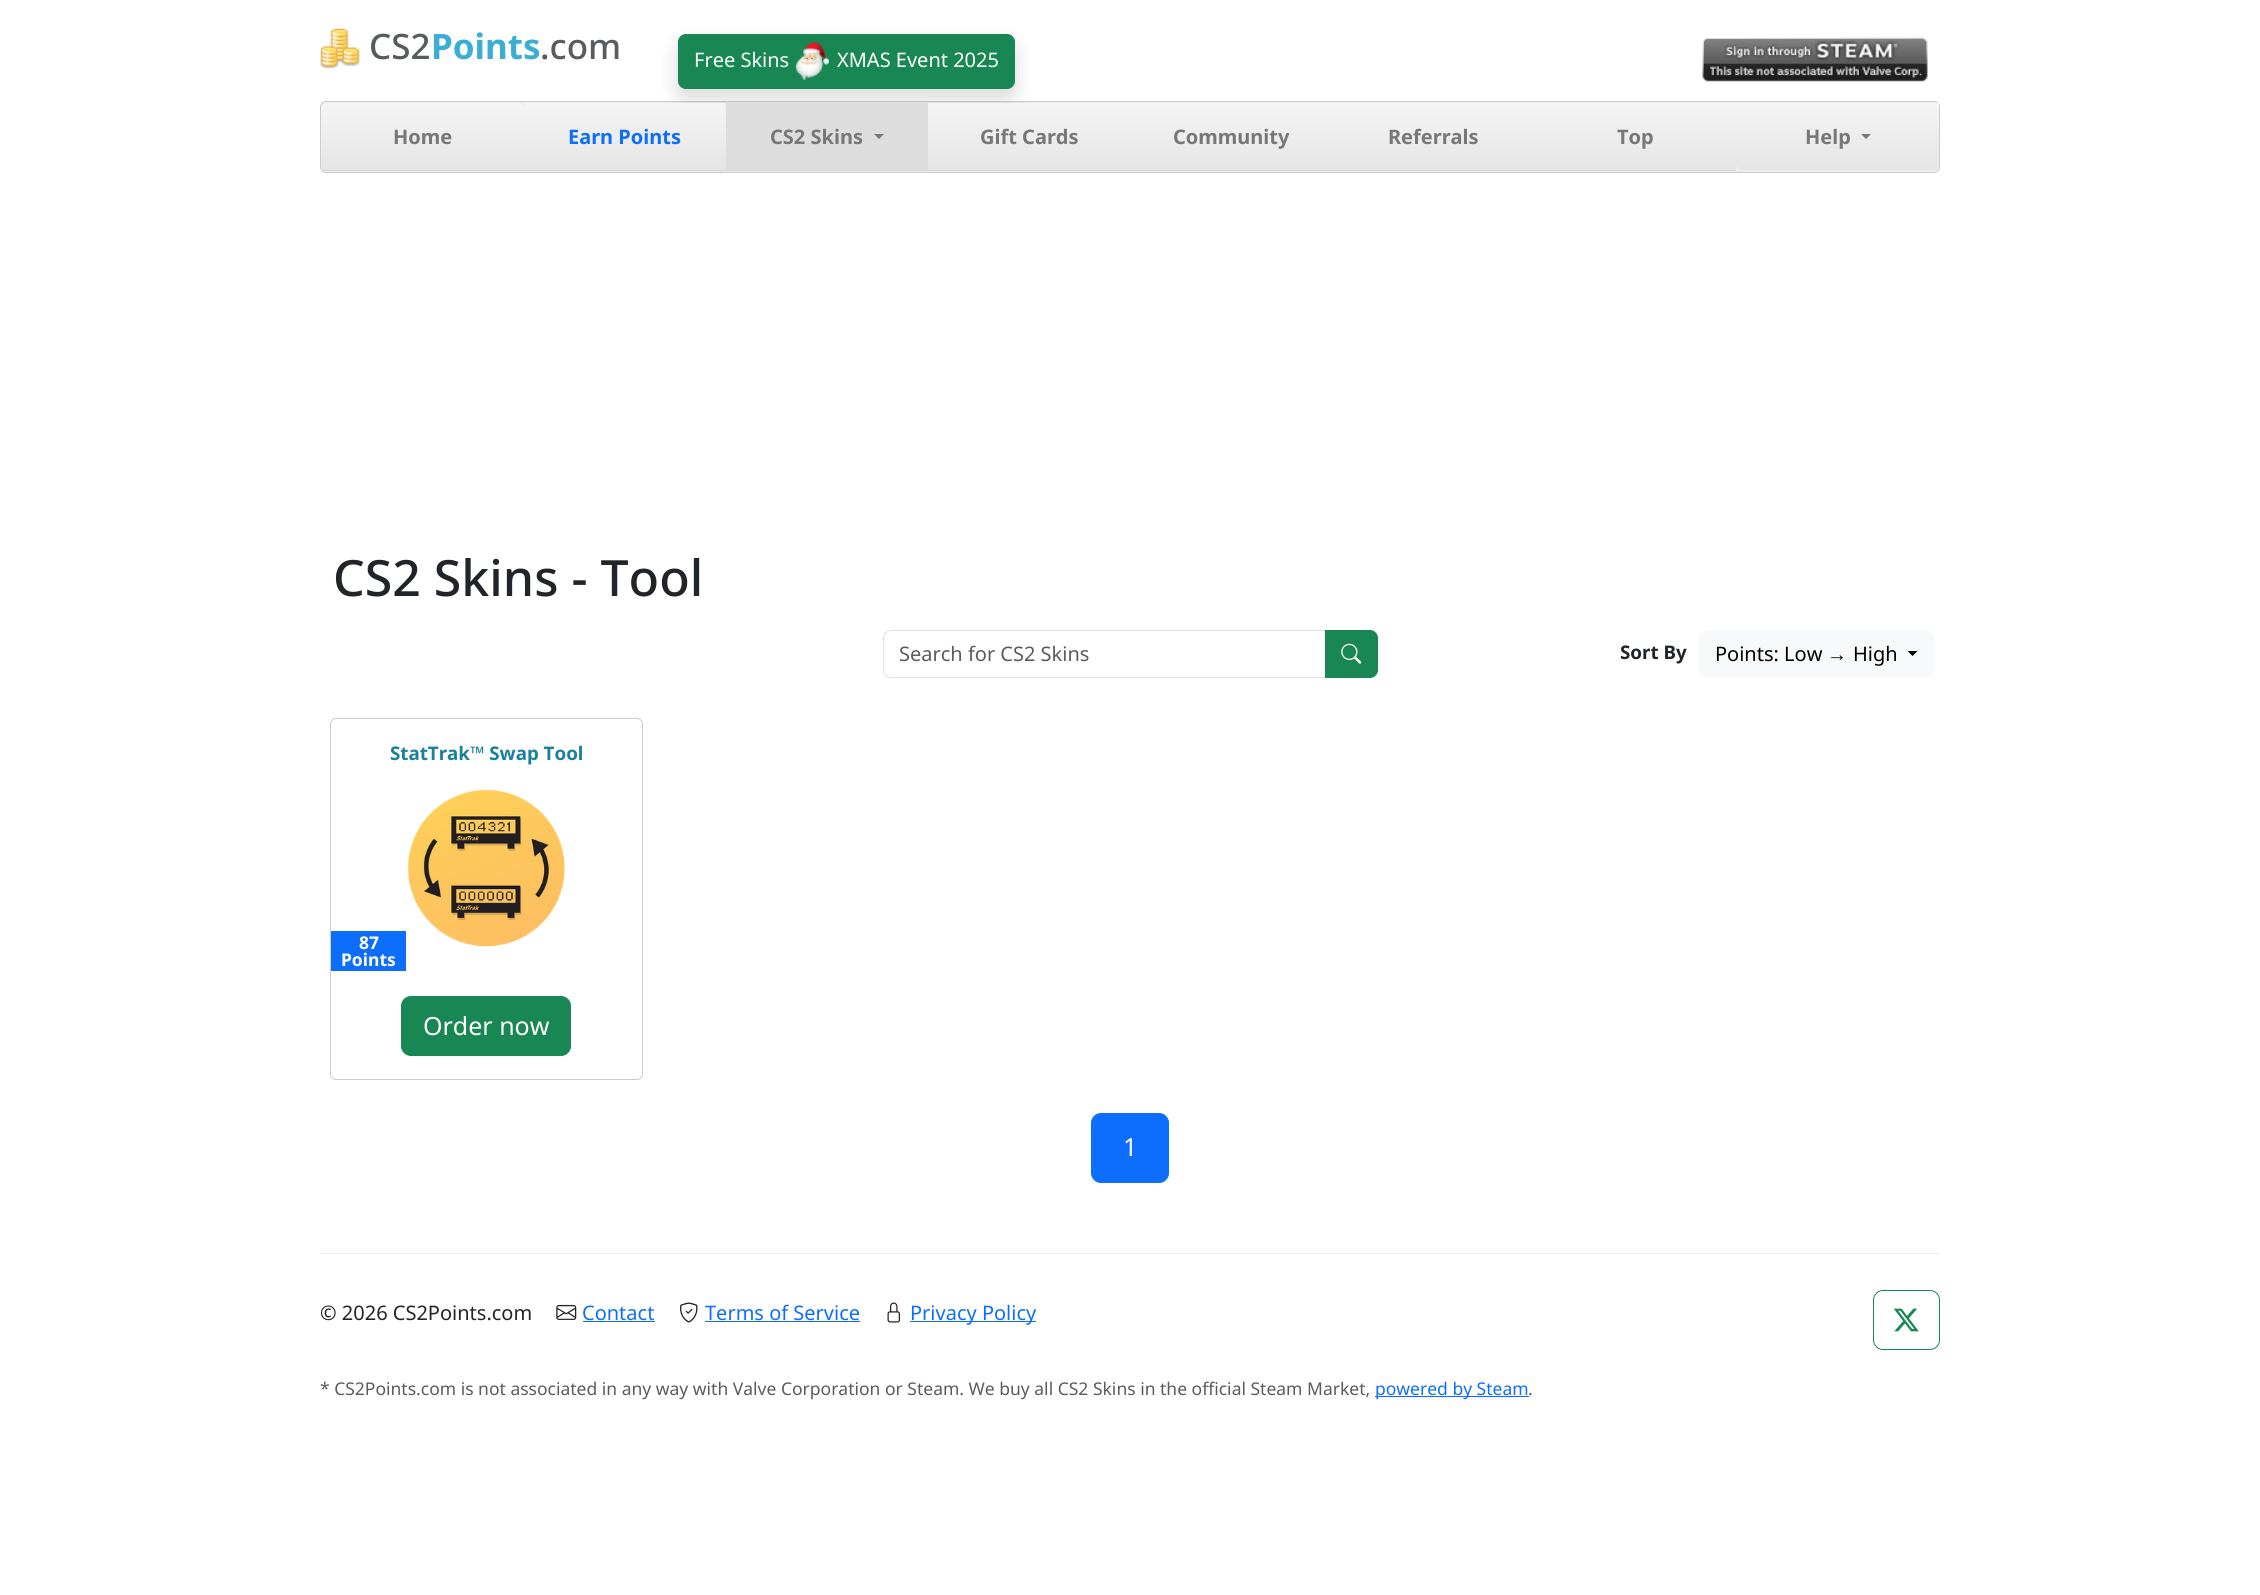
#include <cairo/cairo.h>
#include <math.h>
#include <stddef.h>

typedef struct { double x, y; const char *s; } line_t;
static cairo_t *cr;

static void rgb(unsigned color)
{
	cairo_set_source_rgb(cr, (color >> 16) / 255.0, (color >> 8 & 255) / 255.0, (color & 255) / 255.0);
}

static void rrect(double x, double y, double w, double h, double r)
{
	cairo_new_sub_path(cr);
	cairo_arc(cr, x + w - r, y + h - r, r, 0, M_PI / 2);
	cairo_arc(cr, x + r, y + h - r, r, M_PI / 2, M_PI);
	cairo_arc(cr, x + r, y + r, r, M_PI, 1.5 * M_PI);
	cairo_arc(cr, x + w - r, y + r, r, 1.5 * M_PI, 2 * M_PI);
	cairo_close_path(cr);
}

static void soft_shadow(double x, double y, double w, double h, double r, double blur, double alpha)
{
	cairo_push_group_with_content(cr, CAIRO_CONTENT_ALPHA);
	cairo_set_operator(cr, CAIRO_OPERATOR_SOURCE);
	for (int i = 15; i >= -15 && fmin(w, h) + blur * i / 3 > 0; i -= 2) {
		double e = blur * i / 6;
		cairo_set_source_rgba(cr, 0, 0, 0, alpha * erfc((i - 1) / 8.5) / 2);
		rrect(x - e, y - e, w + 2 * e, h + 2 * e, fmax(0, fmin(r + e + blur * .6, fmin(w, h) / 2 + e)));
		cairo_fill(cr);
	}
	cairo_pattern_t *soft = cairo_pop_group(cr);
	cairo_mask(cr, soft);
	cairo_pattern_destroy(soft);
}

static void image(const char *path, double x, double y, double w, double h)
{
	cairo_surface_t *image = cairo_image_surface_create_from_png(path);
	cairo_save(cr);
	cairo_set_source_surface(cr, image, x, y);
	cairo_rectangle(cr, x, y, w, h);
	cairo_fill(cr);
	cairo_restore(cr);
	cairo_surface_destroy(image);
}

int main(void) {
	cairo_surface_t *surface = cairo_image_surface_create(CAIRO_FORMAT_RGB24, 2260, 1595);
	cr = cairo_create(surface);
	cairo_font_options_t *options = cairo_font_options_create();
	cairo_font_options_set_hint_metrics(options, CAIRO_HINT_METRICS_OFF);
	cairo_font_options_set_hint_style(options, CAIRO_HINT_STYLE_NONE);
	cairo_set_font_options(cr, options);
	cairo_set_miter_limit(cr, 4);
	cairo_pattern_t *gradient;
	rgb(0xffffff);
	cairo_paint(cr);
	image("img/1.png", 320, 28, 40, 41);
	rgb(0xeeeeee);
	rrect(320.5, 101.5, 1619, 71, 5.5);
	cairo_fill_preserve(cr);
	rgb(0xcccccc);
	cairo_set_line_width(cr, 1);
	cairo_stroke(cr);
	rgb(0x000000);
	soft_shadow(678, 44, 337, 55, 8, 10, 0.15);
	rgb(0x198754);
	rrect(678.5, 34.5, 336, 54, 7.5);
	cairo_fill_preserve(cr);
	cairo_stroke(cr);
	image("img/2.png", 795, 42, 34, 38);
	image("img/3.png", 1702, 37, 226, 45);
	gradient = cairo_pattern_create_linear(423, 102, 423, 170);
	cairo_pattern_add_color_stop_rgba(gradient, 0, 0.961, 0.961, 0.961, 1);
	cairo_pattern_add_color_stop_rgba(gradient, 1, 0.898, 0.898, 0.898, 1);
	cairo_set_source(cr, gradient);
	cairo_pattern_destroy(gradient);
	cairo_new_path(cr);
	cairo_move_to(cr, 327, 103);
	cairo_line_to(cr, 518, 103);
	cairo_curve_to(cr, 521.5, 103, 524, 105.5, 524, 109);
	cairo_line_to(cr, 524, 170);
	cairo_line_to(cr, 321, 170);
	cairo_line_to(cr, 321, 109);
	cairo_curve_to(cr, 321, 105.5, 323.5, 103, 327, 103);
	cairo_close_path(cr);
	cairo_fill(cr);
	rgb(0xd5d5d5);
	cairo_rectangle(cr, 321, 170, 405, 1);
	cairo_fill(cr);
	gradient = cairo_pattern_create_linear(625, 102, 625, 170);
	cairo_pattern_add_color_stop_rgba(gradient, 0, 0.961, 0.961, 0.961, 1);
	cairo_pattern_add_color_stop_rgba(gradient, 1, 0.898, 0.898, 0.898, 1);
	cairo_set_source(cr, gradient);
	cairo_pattern_destroy(gradient);
	cairo_rectangle(cr, 524, 103, 202, 67);
	cairo_fill(cr);
	rgb(0xdddddd);
	cairo_rectangle(cr, 726, 103, 202, 67);
	cairo_fill(cr);
	rgb(0x777777);
	cairo_new_path(cr);
	cairo_move_to(cr, 874, 134);
	cairo_line_to(cr, 884, 134);
	cairo_line_to(cr, 879, 139);
	cairo_close_path(cr);
	cairo_fill(cr);
	gradient = cairo_pattern_create_linear(1029, 102, 1029, 170);
	cairo_pattern_add_color_stop_rgba(gradient, 0, 0.961, 0.961, 0.961, 1);
	cairo_pattern_add_color_stop_rgba(gradient, 1, 0.898, 0.898, 0.898, 1);
	cairo_set_source(cr, gradient);
	cairo_pattern_destroy(gradient);
	cairo_rectangle(cr, 928, 103, 202, 67);
	cairo_fill(cr);
	rgb(0xd5d5d5);
	cairo_rectangle(cr, 726, 170, 1010, 1);
	cairo_fill(cr);
	gradient = cairo_pattern_create_linear(1231, 102, 1231, 170);
	cairo_pattern_add_color_stop_rgba(gradient, 0, 0.961, 0.961, 0.961, 1);
	cairo_pattern_add_color_stop_rgba(gradient, 1, 0.898, 0.898, 0.898, 1);
	cairo_set_source(cr, gradient);
	cairo_pattern_destroy(gradient);
	cairo_rectangle(cr, 1130, 103, 203, 67);
	cairo_fill(cr);
	gradient = cairo_pattern_create_linear(1434, 102, 1434, 170);
	cairo_pattern_add_color_stop_rgba(gradient, 0, 0.961, 0.961, 0.961, 1);
	cairo_pattern_add_color_stop_rgba(gradient, 1, 0.898, 0.898, 0.898, 1);
	cairo_set_source(cr, gradient);
	cairo_pattern_destroy(gradient);
	cairo_rectangle(cr, 1333, 103, 202, 67);
	cairo_fill(cr);
	gradient = cairo_pattern_create_linear(1636, 102, 1636, 170);
	cairo_pattern_add_color_stop_rgba(gradient, 0, 0.961, 0.961, 0.961, 1);
	cairo_pattern_add_color_stop_rgba(gradient, 1, 0.898, 0.898, 0.898, 1);
	cairo_set_source(cr, gradient);
	cairo_pattern_destroy(gradient);
	cairo_rectangle(cr, 1535, 103, 201, 67);
	cairo_fill(cr);
	gradient = cairo_pattern_create_linear(1838, 102, 1838, 170);
	cairo_pattern_add_color_stop_rgba(gradient, 0, 0.961, 0.961, 0.961, 1);
	cairo_pattern_add_color_stop_rgba(gradient, 1, 0.898, 0.898, 0.898, 1);
	cairo_set_source(cr, gradient);
	cairo_pattern_destroy(gradient);
	cairo_new_path(cr);
	cairo_move_to(cr, 1736, 103);
	cairo_line_to(cr, 1939, 103);
	cairo_line_to(cr, 1939, 164);
	cairo_curve_to(cr, 1939, 167.5, 1936.5, 170, 1933, 170);
	cairo_line_to(cr, 1742, 170);
	cairo_curve_to(cr, 1738.5, 170, 1736, 167.5, 1736, 164);
	cairo_close_path(cr);
	cairo_fill(cr);
	rgb(0x777777);
	cairo_new_path(cr);
	cairo_move_to(cr, 1861, 134);
	cairo_line_to(cr, 1871, 134);
	cairo_line_to(cr, 1866, 139);
	cairo_close_path(cr);
	cairo_fill(cr);
	cairo_new_path(cr);
	cairo_move_to(cr, 891, 630.5);
	cairo_line_to(cr, 1325.5, 630.5);
	cairo_line_to(cr, 1325.5, 677.5);
	cairo_line_to(cr, 891, 677.5);
	cairo_curve_to(cr, 887, 677.5, 883.5, 674, 883.5, 670);
	cairo_line_to(cr, 883.5, 638);
	cairo_curve_to(cr, 883.5, 634, 887, 630.5, 891, 630.5);
	cairo_close_path(cr);
	rgb(0xdee2e6);
	cairo_stroke(cr);
	rgb(0x198754);
	cairo_new_path(cr);
	cairo_move_to(cr, 1325.5, 630.5);
	cairo_line_to(cr, 1370, 630.5);
	cairo_curve_to(cr, 1374, 630.5, 1377.5, 634, 1377.5, 638);
	cairo_line_to(cr, 1377.5, 670);
	cairo_curve_to(cr, 1377.5, 674, 1374, 677.5, 1370, 677.5);
	cairo_line_to(cr, 1325.5, 677.5);
	cairo_close_path(cr);
	cairo_fill_preserve(cr);
	cairo_stroke(cr);
	image("img/4.png", 1341, 643, 21, 21);
	rgb(0xf8f9fa);
	rrect(1699, 630, 235, 48, 8);
	cairo_fill(cr);
	rgb(0x000000);
	cairo_new_path(cr);
	cairo_move_to(cr, 1907.5, 651);
	cairo_line_to(cr, 1917.5, 651);
	cairo_line_to(cr, 1912.5, 656);
	cairo_close_path(cr);
	cairo_fill(cr);
	rrect(330.5, 718.5, 312, 361, 5.5);
	rgb(0xcccccc);
	cairo_stroke(cr);
	image("img/5.png", 407, 789, 158, 158);
	rgb(0x0d6efd);
	cairo_rectangle(cr, 331, 931, 75, 40);
	cairo_fill(cr);
	rgb(0x198754);
	rrect(401.5, 996.5, 169, 59, 9.5);
	cairo_fill_preserve(cr);
	cairo_stroke(cr);
	rgb(0x0d6efd);
	rrect(1091.5, 1113.5, 77, 69, 9.5);
	cairo_fill_preserve(cr);
	cairo_stroke(cr);
	rgb(0xeeeeee);
	cairo_rectangle(cr, 320, 1253, 1620, 1);
	cairo_fill(cr);
	image("img/6.png", 556, 1304, 21, 16);
	rgb(0x0d6efd);
	cairo_rectangle(cr, 583, 1321, 72, 1);
	cairo_fill(cr);
	image("img/7.png", 680, 1302, 18, 21);
	cairo_rectangle(cr, 705, 1321, 155, 1);
	cairo_fill(cr);
	image("img/8.png", 887, 1302, 13, 21);
	cairo_rectangle(cr, 910, 1321, 126, 1);
	cairo_fill(cr);
	rrect(1873.5, 1290.5, 66, 59, 9.5);
	rgb(0x198754);
	cairo_stroke(cr);
	image("img/9.png", 1893, 1308, 26, 24);
	rgb(0x0d6efd);
	cairo_rectangle(cr, 1375, 1396, 154, 1);
	cairo_fill(cr);
	cairo_select_font_face(cr, "Noto Sans Medium", CAIRO_FONT_SLANT_NORMAL, CAIRO_FONT_WEIGHT_NORMAL);
	cairo_set_font_size(cr, 35);
	rgb(0x595c5f);
	cairo_move_to(cr, 369, 59);
	cairo_show_text(cr, "CS2");
	cairo_select_font_face(cr, "Noto Sans", CAIRO_FONT_SLANT_NORMAL, CAIRO_FONT_WEIGHT_BOLD);
	rgb(0x3cadd4);
	cairo_move_to(cr, 431, 59);
	cairo_show_text(cr, "Points");
	cairo_select_font_face(cr, "Noto Sans Medium", CAIRO_FONT_SLANT_NORMAL, CAIRO_FONT_WEIGHT_NORMAL);
	rgb(0x595c5f);
	cairo_move_to(cr, 540, 59);
	cairo_show_text(cr, ".com");
	cairo_select_font_face(cr, "Noto Sans", CAIRO_FONT_SLANT_NORMAL, CAIRO_FONT_WEIGHT_NORMAL);
	cairo_set_font_size(cr, 20);
	rgb(0xffffff);
	cairo_move_to(cr, 694, 67);
	cairo_show_text(cr, "Free Skins");
	cairo_move_to(cr, 837, 67);
	cairo_show_text(cr, "XMAS Event 2025");
	cairo_select_font_face(cr, "Noto Sans", CAIRO_FONT_SLANT_NORMAL, CAIRO_FONT_WEIGHT_BOLD);
	rgb(0x777777);
	cairo_move_to(cr, 393, 144);
	cairo_show_text(cr, "Home");
	rgb(0x0d6efd);
	cairo_move_to(cr, 568, 144);
	cairo_show_text(cr, "Earn Points");
	rgb(0x777777);
	{
		static const line_t items[] = {
			{770, 144, "CS2 Skins"},
			{980, 144, "Gift Cards"},
			{1173, 144, "Community"},
			{1388, 144, "Referrals"},
			{1617, 144, "Top"},
			{1805, 144, "Help"},
		};
		for (size_t i = 0; i < sizeof items / sizeof *items; i++) {
			cairo_move_to(cr, items[i].x, items[i].y);
			cairo_show_text(cr, items[i].s);
		}
	}
	cairo_select_font_face(cr, "Noto Sans Medium", CAIRO_FONT_SLANT_NORMAL, CAIRO_FONT_WEIGHT_NORMAL);
	cairo_set_font_size(cr, 50);
	rgb(0x212529);
	cairo_move_to(cr, 333, 596);
	cairo_show_text(cr, "CS2 Skins - Tool");
	cairo_select_font_face(cr, "Noto Sans", CAIRO_FONT_SLANT_NORMAL, CAIRO_FONT_WEIGHT_NORMAL);
	cairo_set_font_size(cr, 20);
	rgb(0x595c5f);
	cairo_move_to(cr, 899, 661);
	cairo_show_text(cr, "Search for CS2 Skins");
	cairo_select_font_face(cr, "Noto Sans", CAIRO_FONT_SLANT_NORMAL, CAIRO_FONT_WEIGHT_BOLD);
	cairo_set_font_size(cr, 18.75);
	rgb(0x212529);
	cairo_move_to(cr, 1620, 659);
	cairo_show_text(cr, "Sort By");
	cairo_select_font_face(cr, "Noto Sans", CAIRO_FONT_SLANT_NORMAL, CAIRO_FONT_WEIGHT_NORMAL);
	cairo_set_font_size(cr, 20);
	rgb(0x000000);
	cairo_move_to(cr, 1715, 661);
	cairo_show_text(cr, "Points: Low");
	cairo_move_to(cr, 1853, 661);
	cairo_show_text(cr, "High");
	cairo_select_font_face(cr, "Liberation Sans", CAIRO_FONT_SLANT_NORMAL, CAIRO_FONT_WEIGHT_NORMAL);
	cairo_move_to(cr, 1827, 661);
	cairo_show_text(cr, "→");
	cairo_select_font_face(cr, "Noto Sans", CAIRO_FONT_SLANT_NORMAL, CAIRO_FONT_WEIGHT_BOLD);
	cairo_set_font_size(cr, 18.75);
	rgb(0x1b809e);
	cairo_move_to(cr, 390, 760);
	cairo_show_text(cr, "StatTrak™ Swap Tool");
	cairo_set_font_size(cr, 17.5);
	rgb(0xffffff);
	cairo_move_to(cr, 359, 949);
	cairo_show_text(cr, "87");
	cairo_move_to(cr, 341, 966);
	cairo_show_text(cr, "Points");
	cairo_select_font_face(cr, "Noto Sans", CAIRO_FONT_SLANT_NORMAL, CAIRO_FONT_WEIGHT_NORMAL);
	cairo_set_font_size(cr, 25);
	cairo_move_to(cr, 423, 1035);
	cairo_show_text(cr, "Order now");
	cairo_move_to(cr, 1123, 1156);
	cairo_show_text(cr, "1");
	cairo_set_font_size(cr, 20);
	rgb(0x212529);
	cairo_move_to(cr, 320, 1320);
	cairo_show_text(cr, "© 2026 CS2Points.com");
	rgb(0x0d6efd);
	{
		static const line_t items[] = {
			{582, 1320, "Contact"},
			{705, 1320, "Terms of Service"},
			{910, 1320, "Privacy Policy"},
		};
		for (size_t i = 0; i < sizeof items / sizeof *items; i++) {
			cairo_move_to(cr, items[i].x, items[i].y);
			cairo_show_text(cr, items[i].s);
		}
	}
	cairo_set_font_size(cr, 17.5);
	rgb(0x595c5f);
	cairo_move_to(cr, 320, 1395);
	cairo_show_text(cr, "* CS2Points.com is not associated in any way with Valve Corporation or Steam. We buy all CS2 Skins in the official Steam Market,");
	rgb(0x0d6efd);
	cairo_move_to(cr, 1375, 1395);
	cairo_show_text(cr, "powered by Steam");
	rgb(0x595c5f);
	cairo_move_to(cr, 1528, 1395);
	cairo_show_text(cr, ".");
	cairo_surface_write_to_png(surface, "page.png");
	cairo_font_options_destroy(options);
	cairo_destroy(cr);
	cairo_surface_destroy(surface);
	return 0;
}
